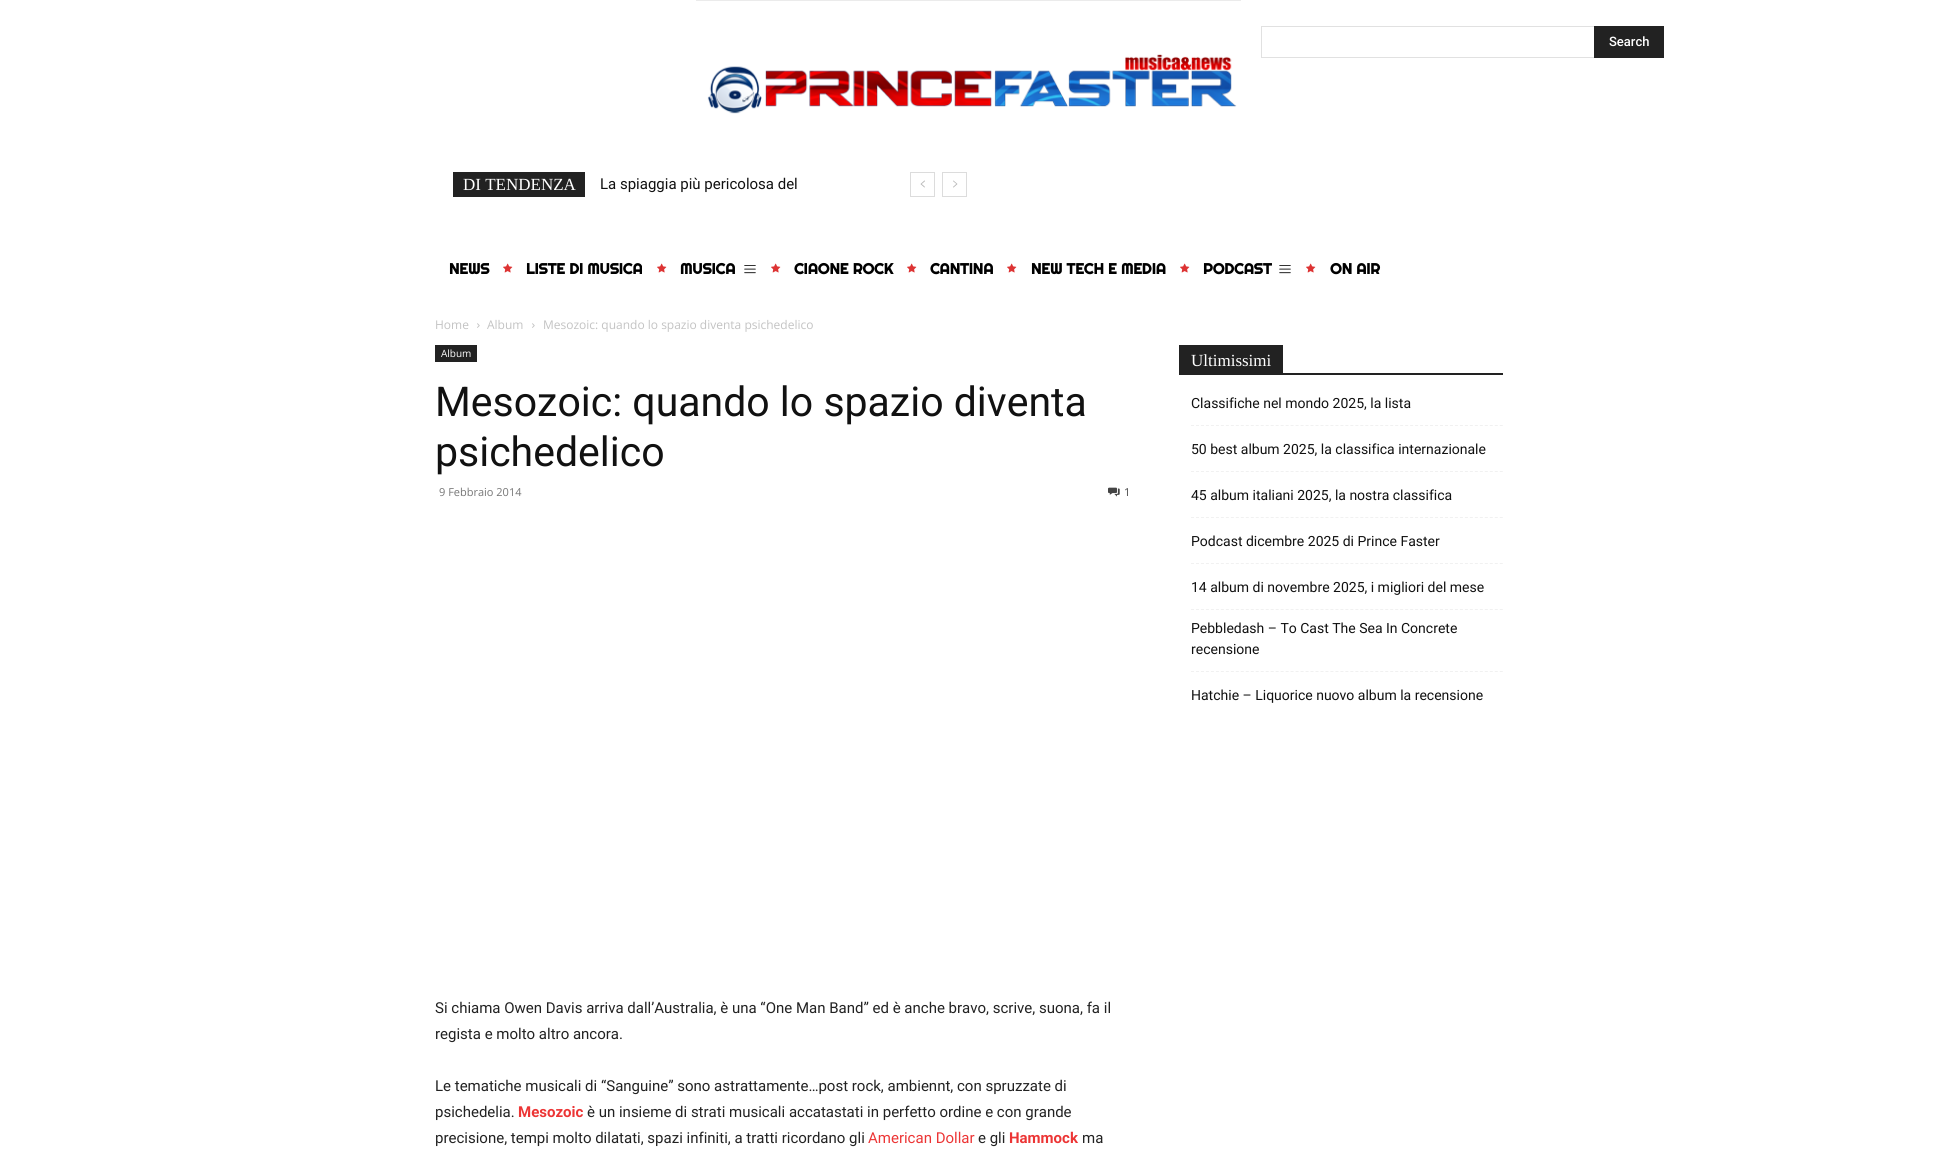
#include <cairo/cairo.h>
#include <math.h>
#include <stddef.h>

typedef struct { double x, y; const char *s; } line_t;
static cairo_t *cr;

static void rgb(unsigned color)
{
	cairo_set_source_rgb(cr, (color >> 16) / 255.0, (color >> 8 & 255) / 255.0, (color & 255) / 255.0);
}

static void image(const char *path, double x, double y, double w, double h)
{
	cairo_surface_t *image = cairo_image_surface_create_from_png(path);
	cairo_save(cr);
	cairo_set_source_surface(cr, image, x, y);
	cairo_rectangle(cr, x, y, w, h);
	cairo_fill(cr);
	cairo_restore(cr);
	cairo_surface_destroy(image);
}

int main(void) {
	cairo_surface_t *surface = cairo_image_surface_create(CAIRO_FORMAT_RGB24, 1937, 1162);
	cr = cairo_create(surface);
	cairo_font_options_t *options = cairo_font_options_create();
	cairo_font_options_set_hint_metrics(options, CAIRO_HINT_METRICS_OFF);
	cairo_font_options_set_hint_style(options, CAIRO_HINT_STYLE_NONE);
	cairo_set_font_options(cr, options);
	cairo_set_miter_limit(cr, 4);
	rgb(0xffffff);
	cairo_paint(cr);
	rgb(0xebebeb);
	cairo_rectangle(cr, 696, 0, 545, 1);
	cairo_fill(cr);
	image("img/1.png", 707, 54, 530, 60);
	cairo_rectangle(cr, 1261.5, 26.5, 402, 31);
	rgb(0xe1e1e1);
	cairo_set_line_width(cr, 1);
	cairo_stroke(cr);
	rgb(0x222222);
	cairo_rectangle(cr, 1594, 26, 70, 32);
	cairo_fill(cr);
	cairo_rectangle(cr, 453, 172, 132, 25);
	cairo_fill(cr);
	cairo_rectangle(cr, 910.5, 172.5, 24, 24);
	rgb(0xdcdcdc);
	cairo_stroke(cr);
	image("img/2.png", 920, 180, 5, 8);
	cairo_rectangle(cr, 942.5, 172.5, 24, 24);
	cairo_stroke(cr);
	image("img/3.png", 953, 180, 5, 8);
	image("img/4.png", 503, 263, 10, 10);
	image("img/4.png", 657, 263, 10, 10);
	image("img/5.png", 744, 265, 12, 9);
	image("img/4.png", 771, 263, 10, 10);
	image("img/4.png", 907, 263, 10, 10);
	image("img/4.png", 1007, 263, 10, 10);
	image("img/4.png", 1180, 263, 10, 10);
	image("img/5.png", 1279, 265, 12, 9);
	image("img/4.png", 1306, 263, 10, 10);
	image("img/6.png", 477, 323, 3, 5);
	image("img/6.png", 532, 323, 3, 5);
	rgb(0x222222);
	cairo_rectangle(cr, 435, 345, 42, 17);
	cairo_fill(cr);
	image("img/7.png", 1108, 487, 12, 10);
	cairo_rectangle(cr, 1179, 373, 324, 2);
	cairo_fill(cr);
	cairo_rectangle(cr, 1179, 345, 104, 28);
	cairo_fill(cr);
	cairo_new_path(cr);
	cairo_move_to(cr, 1191, 425.5);
	cairo_line_to(cr, 1503, 425.5);
	rgb(0xf1f1f1);
	cairo_set_dash(cr, (double[]){3, 1.98}, 2, 0);
	cairo_stroke(cr);
	cairo_new_path(cr);
	cairo_move_to(cr, 1191, 471.5);
	cairo_line_to(cr, 1503, 471.5);
	cairo_stroke(cr);
	cairo_new_path(cr);
	cairo_move_to(cr, 1191, 517.5);
	cairo_line_to(cr, 1503, 517.5);
	cairo_stroke(cr);
	cairo_new_path(cr);
	cairo_move_to(cr, 1191, 563.5);
	cairo_line_to(cr, 1503, 563.5);
	cairo_stroke(cr);
	cairo_new_path(cr);
	cairo_move_to(cr, 1191, 609.5);
	cairo_line_to(cr, 1503, 609.5);
	cairo_stroke(cr);
	cairo_new_path(cr);
	cairo_move_to(cr, 1191, 671.5);
	cairo_line_to(cr, 1503, 671.5);
	cairo_stroke(cr);
	cairo_select_font_face(cr, "Roboto Medium", CAIRO_FONT_SLANT_NORMAL, CAIRO_FONT_WEIGHT_NORMAL);
	cairo_set_font_size(cr, 13);
	rgb(0xffffff);
	cairo_move_to(cr, 1609, 46);
	cairo_show_text(cr, "Search");
	cairo_select_font_face(cr, "Liberation Serif", CAIRO_FONT_SLANT_NORMAL, CAIRO_FONT_WEIGHT_NORMAL);
	cairo_set_font_size(cr, 17);
	cairo_move_to(cr, 463, 190);
	cairo_show_text(cr, "DI TENDENZA");
	cairo_select_font_face(cr, "Roboto", CAIRO_FONT_SLANT_NORMAL, CAIRO_FONT_WEIGHT_NORMAL);
	cairo_set_font_size(cr, 15);
	rgb(0x111111);
	cairo_move_to(cr, 600, 189);
	cairo_show_text(cr, "La spiaggia più pericolosa del");
	cairo_select_font_face(cr, "Righteous", CAIRO_FONT_SLANT_NORMAL, CAIRO_FONT_WEIGHT_BOLD);
	rgb(0x000000);
	{
		static const line_t items[] = {
			{449, 274, "NEWS"},
			{526, 274, "LISTE DI MUSICA"},
			{680, 274, "MUSICA"},
			{794, 274, "CIAONE ROCK"},
			{930, 274, "CANTINA"},
			{1031, 274, "NEW TECH E MEDIA"},
			{1203, 274, "PODCAST"},
			{1330, 274, "ON AIR"},
		};
		for (size_t i = 0; i < sizeof items / sizeof *items; i++) {
			cairo_move_to(cr, items[i].x, items[i].y);
			cairo_show_text(cr, items[i].s);
		}
	}
	cairo_select_font_face(cr, "Open Sans", CAIRO_FONT_SLANT_NORMAL, CAIRO_FONT_WEIGHT_NORMAL);
	cairo_set_font_size(cr, 12);
	rgb(0xc3c3c3);
	{
		static const line_t items[] = {
			{435, 329, "Home"},
			{487, 329, "Album"},
			{543, 329, "Mesozoic: quando lo spazio diventa psichedelico"},
		};
		for (size_t i = 0; i < sizeof items / sizeof *items; i++) {
			cairo_move_to(cr, items[i].x, items[i].y);
			cairo_show_text(cr, items[i].s);
		}
	}
	cairo_set_font_size(cr, 10);
	rgb(0xffffff);
	cairo_move_to(cr, 441, 357);
	cairo_show_text(cr, "Album");
	cairo_select_font_face(cr, "Roboto", CAIRO_FONT_SLANT_NORMAL, CAIRO_FONT_WEIGHT_NORMAL);
	cairo_set_font_size(cr, 41);
	rgb(0x111111);
	cairo_move_to(cr, 435, 416);
	cairo_show_text(cr, "Mesozoic: quando lo spazio diventa");
	cairo_move_to(cr, 435, 466);
	cairo_show_text(cr, "psichedelico");
	cairo_select_font_face(cr, "Open Sans", CAIRO_FONT_SLANT_NORMAL, CAIRO_FONT_WEIGHT_NORMAL);
	cairo_set_font_size(cr, 11);
	rgb(0x767676);
	cairo_move_to(cr, 439, 496);
	cairo_show_text(cr, "9 Febbraio 2014");
	rgb(0x444444);
	cairo_move_to(cr, 1124, 496);
	cairo_show_text(cr, "1");
	cairo_select_font_face(cr, "Roboto", CAIRO_FONT_SLANT_NORMAL, CAIRO_FONT_WEIGHT_NORMAL);
	cairo_set_font_size(cr, 15);
	rgb(0x222222);
	{
		static const line_t items[] = {
			{435, 1013, "Si chiama Owen Davis arriva dall’Australia, è una “One Man Band” ed è anche bravo, scrive, suona, fa il"},
			{435, 1039, "regista e molto altro ancora."},
			{435, 1091, "Le tematiche musicali di “Sanguine” sono astrattamente…post rock, ambiennt, con spruzzate di"},
			{435, 1117, "psichedelia."},
		};
		for (size_t i = 0; i < sizeof items / sizeof *items; i++) {
			cairo_move_to(cr, items[i].x, items[i].y);
			cairo_show_text(cr, items[i].s);
		}
	}
	cairo_select_font_face(cr, "Roboto", CAIRO_FONT_SLANT_NORMAL, CAIRO_FONT_WEIGHT_BOLD);
	rgb(0xec3535);
	cairo_move_to(cr, 518, 1117);
	cairo_show_text(cr, "Mesozoic");
	cairo_select_font_face(cr, "Roboto", CAIRO_FONT_SLANT_NORMAL, CAIRO_FONT_WEIGHT_NORMAL);
	rgb(0x222222);
	cairo_move_to(cr, 587, 1117);
	cairo_show_text(cr, "è un insieme di strati musicali accatastati in perfetto ordine e con grande");
	cairo_move_to(cr, 435, 1143);
	cairo_show_text(cr, "precisione, tempi molto dilatati, spazi infiniti, a tratti ricordano gli");
	rgb(0xec3535);
	cairo_move_to(cr, 868, 1143);
	cairo_show_text(cr, "American Dollar");
	rgb(0x222222);
	cairo_move_to(cr, 978, 1143);
	cairo_show_text(cr, "e gli");
	cairo_select_font_face(cr, "Roboto", CAIRO_FONT_SLANT_NORMAL, CAIRO_FONT_WEIGHT_BOLD);
	rgb(0xec3535);
	cairo_move_to(cr, 1009, 1143);
	cairo_show_text(cr, "Hammock");
	cairo_select_font_face(cr, "Roboto", CAIRO_FONT_SLANT_NORMAL, CAIRO_FONT_WEIGHT_NORMAL);
	rgb(0x222222);
	cairo_move_to(cr, 1082, 1143);
	cairo_show_text(cr, "ma");
	cairo_select_font_face(cr, "Liberation Serif", CAIRO_FONT_SLANT_NORMAL, CAIRO_FONT_WEIGHT_NORMAL);
	cairo_set_font_size(cr, 17);
	rgb(0xffffff);
	cairo_move_to(cr, 1191, 366);
	cairo_show_text(cr, "Ultimissimi");
	cairo_select_font_face(cr, "Roboto", CAIRO_FONT_SLANT_NORMAL, CAIRO_FONT_WEIGHT_NORMAL);
	cairo_set_font_size(cr, 14);
	rgb(0x111111);
	{
		static const line_t items[] = {
			{1191, 408, "Classifiche nel mondo 2025, la lista"},
			{1191, 454, "50 best album 2025, la classifica internazionale"},
			{1191, 500, "45 album italiani 2025, la nostra classifica"},
			{1191, 546, "Podcast dicembre 2025 di Prince Faster"},
			{1191, 592, "14 album di novembre 2025, i migliori del mese"},
			{1191, 633, "Pebbledash – To Cast The Sea In Concrete"},
			{1191, 654, "recensione"},
			{1191, 700, "Hatchie – Liquorice nuovo album la recensione"},
		};
		for (size_t i = 0; i < sizeof items / sizeof *items; i++) {
			cairo_move_to(cr, items[i].x, items[i].y);
			cairo_show_text(cr, items[i].s);
		}
	}
	cairo_surface_write_to_png(surface, "page.png");
	cairo_font_options_destroy(options);
	cairo_destroy(cr);
	cairo_surface_destroy(surface);
	return 0;
}
